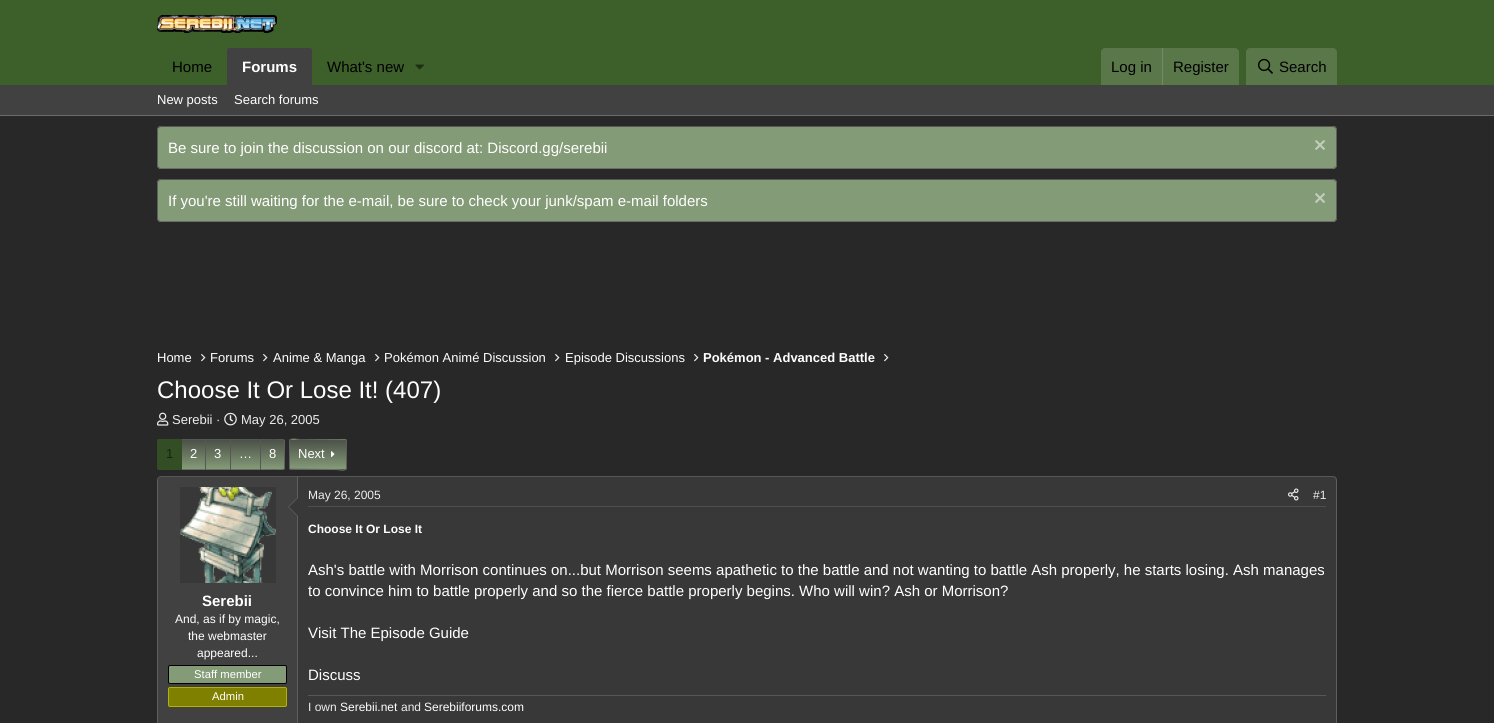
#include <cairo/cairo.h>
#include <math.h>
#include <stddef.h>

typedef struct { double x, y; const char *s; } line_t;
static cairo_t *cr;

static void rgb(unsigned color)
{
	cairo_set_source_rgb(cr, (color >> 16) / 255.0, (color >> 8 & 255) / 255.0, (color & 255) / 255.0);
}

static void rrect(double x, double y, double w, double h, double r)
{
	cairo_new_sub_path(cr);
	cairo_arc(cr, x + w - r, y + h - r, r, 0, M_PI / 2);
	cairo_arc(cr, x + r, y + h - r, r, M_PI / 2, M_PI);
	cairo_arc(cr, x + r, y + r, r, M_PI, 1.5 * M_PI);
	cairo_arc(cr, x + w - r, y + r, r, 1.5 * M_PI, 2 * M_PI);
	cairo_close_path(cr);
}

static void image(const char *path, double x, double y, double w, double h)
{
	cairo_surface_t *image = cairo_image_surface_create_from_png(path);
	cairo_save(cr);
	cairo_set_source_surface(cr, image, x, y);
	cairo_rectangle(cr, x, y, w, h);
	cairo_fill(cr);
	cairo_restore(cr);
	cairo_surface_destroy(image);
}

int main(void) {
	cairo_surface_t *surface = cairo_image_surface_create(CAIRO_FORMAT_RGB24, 1494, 723);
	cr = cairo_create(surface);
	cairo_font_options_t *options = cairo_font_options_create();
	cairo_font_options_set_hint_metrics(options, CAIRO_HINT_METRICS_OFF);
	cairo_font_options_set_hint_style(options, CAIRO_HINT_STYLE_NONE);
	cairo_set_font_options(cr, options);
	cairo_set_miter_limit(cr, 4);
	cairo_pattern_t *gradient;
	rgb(0x282828);
	cairo_paint(cr);
	rgb(0x3d5f29);
	cairo_rectangle(cr, 0, 0, 1494, 85);
	cairo_fill(cr);
	image("img/1.png", 157, 15, 120, 18);
	rgb(0x414141);
	cairo_new_path(cr);
	cairo_move_to(cr, 229, 48);
	cairo_line_to(cr, 310, 48);
	cairo_curve_to(cr, 311, 48, 312, 49, 312, 50);
	cairo_line_to(cr, 312, 85);
	cairo_line_to(cr, 227, 85);
	cairo_line_to(cr, 227, 50);
	cairo_curve_to(cr, 227, 49, 228, 48, 229, 48);
	cairo_close_path(cr);
	cairo_fill(cr);
	image("img/2.png", 415, 64, 9, 6);
	rgb(0x5a7749);
	cairo_new_path(cr);
	cairo_move_to(cr, 1105, 48);
	cairo_line_to(cr, 1235, 48);
	cairo_curve_to(cr, 1237, 48, 1239, 50, 1239, 52);
	cairo_line_to(cr, 1239, 85);
	cairo_line_to(cr, 1101, 85);
	cairo_line_to(cr, 1101, 52);
	cairo_curve_to(cr, 1101, 50, 1103, 48, 1105, 48);
	cairo_close_path(cr);
	cairo_fill(cr);
	rgb(0x738b64);
	cairo_rectangle(cr, 1162, 48, 1, 37);
	cairo_fill(cr);
	rgb(0x5a7749);
	cairo_new_path(cr);
	cairo_move_to(cr, 1250, 48);
	cairo_line_to(cr, 1333, 48);
	cairo_curve_to(cr, 1335, 48, 1337, 50, 1337, 52);
	cairo_line_to(cr, 1337, 85);
	cairo_line_to(cr, 1246, 85);
	cairo_line_to(cr, 1246, 52);
	cairo_curve_to(cr, 1246, 50, 1248, 48, 1250, 48);
	cairo_close_path(cr);
	cairo_fill(cr);
	image("img/3.png", 1258, 58, 15, 16);
	rgb(0x414141);
	cairo_rectangle(cr, 0, 85, 1494, 30);
	cairo_fill(cr);
	rgb(0x6b6b6b);
	cairo_rectangle(cr, 0, 115, 1494, 1);
	cairo_fill(cr);
	rgb(0x849b77);
	rrect(157, 126, 1180, 43, 4);
	cairo_fill(cr);
	cairo_new_path(cr);
	cairo_move_to(cr, 158.5, 127.5);
	cairo_line_to(cr, 161, 126.5);
	cairo_line_to(cr, 1333, 126.5);
	cairo_line_to(cr, 1335.5, 127.5);
	rgb(0x575757);
	cairo_set_line_width(cr, 1);
	cairo_stroke(cr);
	cairo_new_path(cr);
	cairo_move_to(cr, 1335.5, 127.5);
	cairo_curve_to(cr, 1336, 128, 1336.5, 129, 1336.5, 130);
	cairo_line_to(cr, 1336.5, 165);
	cairo_curve_to(cr, 1336.5, 166, 1336, 167, 1335.5, 167.5);
	rgb(0x5e5e5e);
	cairo_stroke(cr);
	cairo_new_path(cr);
	cairo_move_to(cr, 1335.5, 167.5);
	cairo_line_to(cr, 1333, 168.5);
	cairo_line_to(cr, 161, 168.5);
	cairo_line_to(cr, 158.5, 167.5);
	rgb(0x6b6b6b);
	cairo_stroke(cr);
	cairo_new_path(cr);
	cairo_move_to(cr, 158.5, 167.5);
	cairo_curve_to(cr, 158, 167, 157.5, 166, 157.5, 165);
	cairo_line_to(cr, 157.5, 130);
	cairo_curve_to(cr, 157.5, 129, 158, 128, 158.5, 127.5);
	rgb(0x5e5e5e);
	cairo_stroke(cr);
	image("img/4.png", 1315, 140, 10, 10);
	rgb(0x849b77);
	rrect(157, 179, 1180, 43, 4);
	cairo_fill(cr);
	cairo_new_path(cr);
	cairo_move_to(cr, 158.5, 180.5);
	cairo_line_to(cr, 161, 179.5);
	cairo_line_to(cr, 1333, 179.5);
	cairo_line_to(cr, 1335.5, 180.5);
	rgb(0x575757);
	cairo_stroke(cr);
	cairo_new_path(cr);
	cairo_move_to(cr, 1335.5, 180.5);
	cairo_curve_to(cr, 1336, 181, 1336.5, 182, 1336.5, 183);
	cairo_line_to(cr, 1336.5, 218);
	cairo_curve_to(cr, 1336.5, 219, 1336, 220, 1335.5, 220.5);
	rgb(0x5e5e5e);
	cairo_stroke(cr);
	cairo_new_path(cr);
	cairo_move_to(cr, 1335.5, 220.5);
	cairo_line_to(cr, 1333, 221.5);
	cairo_line_to(cr, 161, 221.5);
	cairo_line_to(cr, 158.5, 220.5);
	rgb(0x6b6b6b);
	cairo_stroke(cr);
	cairo_new_path(cr);
	cairo_move_to(cr, 158.5, 220.5);
	cairo_curve_to(cr, 158, 220, 157.5, 219, 157.5, 218);
	cairo_line_to(cr, 157.5, 183);
	cairo_curve_to(cr, 157.5, 182, 158, 181, 158.5, 180.5);
	rgb(0x5e5e5e);
	cairo_stroke(cr);
	image("img/4.png", 1315, 193, 10, 10);
	image("img/5.png", 201, 354, 5, 8);
	image("img/5.png", 263, 354, 5, 8);
	image("img/5.png", 375, 354, 5, 8);
	image("img/5.png", 555, 354, 5, 8);
	image("img/5.png", 694, 354, 5, 8);
	image("img/5.png", 884, 354, 5, 8);
	image("img/6.png", 157, 412, 12, 14);
	image("img/7.png", 224, 412, 13, 14);
	rgb(0x334e25);
	cairo_new_path(cr);
	cairo_move_to(cr, 159, 439.5);
	cairo_line_to(cr, 181.5, 439.5);
	cairo_line_to(cr, 181.5, 469.5);
	cairo_line_to(cr, 159, 469.5);
	cairo_curve_to(cr, 158, 469.5, 157.5, 469, 157.5, 468);
	cairo_line_to(cr, 157.5, 441);
	cairo_curve_to(cr, 157.5, 440, 158, 439.5, 159, 439.5);
	cairo_close_path(cr);
	cairo_fill_preserve(cr);
	cairo_stroke(cr);
	gradient = cairo_pattern_create_linear(194, 469, 194, 440);
	cairo_pattern_add_color_stop_rgba(gradient, 0, 0.518, 0.608, 0.467, 1);
	cairo_pattern_add_color_stop_rgba(gradient, 1, 0.294, 0.318, 0.282, 1);
	cairo_set_source(cr, gradient);
	cairo_pattern_destroy(gradient);
	cairo_rectangle(cr, 182, 440, 23, 29);
	cairo_fill(cr);
	rgb(0x575757);
	cairo_rectangle(cr, 182, 439, 78, 1);
	cairo_fill(cr);
	rgb(0x6b6b6b);
	cairo_rectangle(cr, 182, 469, 78, 1);
	cairo_fill(cr);
	gradient = cairo_pattern_create_linear(218, 469, 218, 440);
	cairo_pattern_add_color_stop_rgba(gradient, 0, 0.518, 0.608, 0.467, 1);
	cairo_pattern_add_color_stop_rgba(gradient, 1, 0.294, 0.318, 0.282, 1);
	cairo_set_source(cr, gradient);
	cairo_pattern_destroy(gradient);
	cairo_rectangle(cr, 206, 440, 24, 29);
	cairo_fill(cr);
	rgb(0x575757);
	cairo_rectangle(cr, 205, 439, 1, 31);
	cairo_fill(cr);
	gradient = cairo_pattern_create_linear(246, 469, 246, 440);
	cairo_pattern_add_color_stop_rgba(gradient, 0, 0.518, 0.608, 0.467, 1);
	cairo_pattern_add_color_stop_rgba(gradient, 1, 0.294, 0.318, 0.282, 1);
	cairo_set_source(cr, gradient);
	cairo_pattern_destroy(gradient);
	cairo_rectangle(cr, 231, 440, 29, 29);
	cairo_fill(cr);
	rgb(0x575757);
	cairo_rectangle(cr, 230, 439, 1, 31);
	cairo_fill(cr);
	gradient = cairo_pattern_create_linear(273, 469, 273, 440);
	cairo_pattern_add_color_stop_rgba(gradient, 0, 0.518, 0.608, 0.467, 1);
	cairo_pattern_add_color_stop_rgba(gradient, 1, 0.294, 0.318, 0.282, 1);
	cairo_set_source(cr, gradient);
	cairo_pattern_destroy(gradient);
	cairo_rectangle(cr, 261, 440, 24, 29);
	cairo_fill(cr);
	rgb(0x575757);
	cairo_new_path(cr);
	cairo_move_to(cr, 260, 439);
	cairo_line_to(cr, 261, 440);
	cairo_curve_to(cr, 263.5, 440, 283, 439.5, 283.5, 440.5);
	cairo_line_to(cr, 284.5, 439.5);
	cairo_line_to(cr, 283, 439);
	cairo_close_path(cr);
	cairo_fill(cr);
	rgb(0x5e5e5e);
	cairo_new_path(cr);
	cairo_move_to(cr, 285, 468);
	cairo_line_to(cr, 285, 441);
	cairo_line_to(cr, 284.5, 439.5);
	cairo_line_to(cr, 283.5, 440.5);
	cairo_line_to(cr, 284, 441);
	cairo_line_to(cr, 284, 468);
	cairo_line_to(cr, 283.5, 468.5);
	cairo_line_to(cr, 284.5, 469.5);
	cairo_close_path(cr);
	cairo_fill(cr);
	rgb(0x6b6b6b);
	cairo_new_path(cr);
	cairo_move_to(cr, 283, 470);
	cairo_line_to(cr, 284.5, 469.5);
	cairo_line_to(cr, 283.5, 468.5);
	cairo_curve_to(cr, 283, 469.5, 263.5, 469, 261, 469);
	cairo_line_to(cr, 260, 470);
	cairo_close_path(cr);
	cairo_fill(cr);
	rgb(0x575757);
	cairo_new_path(cr);
	cairo_move_to(cr, 261, 440);
	cairo_line_to(cr, 260, 439);
	cairo_line_to(cr, 260, 470);
	cairo_line_to(cr, 261, 469);
	cairo_close_path(cr);
	cairo_fill(cr);
	cairo_save(cr);
	rrect(289, 439, 58, 31, 2);
	cairo_clip(cr);
	gradient = cairo_pattern_create_linear(318, 440, 318, 411);
	cairo_pattern_add_color_stop_rgba(gradient, 0, 0.518, 0.608, 0.467, 1);
	cairo_pattern_add_color_stop_rgba(gradient, 1, 0.294, 0.318, 0.282, 1);
	cairo_set_source(cr, gradient);
	cairo_pattern_destroy(gradient);
	cairo_rectangle(cr, 289, 439, 58, 1);
	cairo_fill(cr);
	gradient = cairo_pattern_create_linear(318, 469, 318, 440);
	cairo_pattern_add_color_stop_rgba(gradient, 0, 0.518, 0.608, 0.467, 1);
	cairo_pattern_add_color_stop_rgba(gradient, 1, 0.294, 0.318, 0.282, 1);
	cairo_set_source(cr, gradient);
	cairo_pattern_destroy(gradient);
	cairo_rectangle(cr, 289, 440, 58, 29);
	cairo_fill(cr);
	gradient = cairo_pattern_create_linear(318, 498, 318, 469);
	cairo_pattern_add_color_stop_rgba(gradient, 0, 0.518, 0.608, 0.467, 1);
	cairo_pattern_add_color_stop_rgba(gradient, 1, 0.294, 0.318, 0.282, 1);
	cairo_set_source(cr, gradient);
	cairo_pattern_destroy(gradient);
	cairo_rectangle(cr, 289, 469, 58, 1);
	cairo_fill(cr);
	cairo_restore(cr);
	cairo_new_path(cr);
	cairo_move_to(cr, 290, 440);
	cairo_curve_to(cr, 292.5, 437.5, 296.5, 439.5, 300, 439.5);
	cairo_line_to(cr, 346, 440);
	cairo_stroke(cr);
	cairo_new_path(cr);
	cairo_move_to(cr, 346, 440);
	cairo_line_to(cr, 346.5, 441);
	cairo_line_to(cr, 346.5, 468);
	cairo_line_to(cr, 346, 469);
	rgb(0x5e5e5e);
	cairo_stroke(cr);
	cairo_new_path(cr);
	cairo_move_to(cr, 346, 469);
	cairo_curve_to(cr, 343.5, 471.5, 339.5, 469.5, 336, 469.5);
	cairo_line_to(cr, 290, 469);
	rgb(0x6b6b6b);
	cairo_stroke(cr);
	cairo_new_path(cr);
	cairo_move_to(cr, 290, 469);
	cairo_line_to(cr, 289.5, 468);
	cairo_line_to(cr, 289.5, 441);
	cairo_line_to(cr, 290, 440);
	rgb(0x5e5e5e);
	cairo_stroke(cr);
	image("img/8.png", 331, 451, 4, 6);
	rgb(0x383838);
	rrect(157, 476, 1180, 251, 4);
	cairo_fill(cr);
	cairo_new_path(cr);
	cairo_move_to(cr, 158.5, 477.5);
	cairo_line_to(cr, 161, 476.5);
	cairo_line_to(cr, 1333, 476.5);
	cairo_line_to(cr, 1335.5, 477.5);
	rgb(0x575757);
	cairo_stroke(cr);
	cairo_new_path(cr);
	cairo_move_to(cr, 1335.5, 477.5);
	cairo_line_to(cr, 1336.5, 480);
	cairo_line_to(cr, 1336.5, 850);
	cairo_line_to(cr, 1335.5, 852.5);
	rgb(0x5e5e5e);
	cairo_stroke(cr);
	cairo_new_path(cr);
	cairo_move_to(cr, 158.5, 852.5);
	cairo_line_to(cr, 157.5, 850);
	cairo_line_to(cr, 157.5, 480);
	cairo_line_to(cr, 158.5, 477.5);
	cairo_stroke(cr);
	rgb(0x414141);
	cairo_new_path(cr);
	cairo_move_to(cr, 161, 477);
	cairo_line_to(cr, 298, 477);
	cairo_line_to(cr, 298, 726);
	cairo_line_to(cr, 161, 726);
	cairo_curve_to(cr, 159.5, 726, 158, 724.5, 158, 723);
	cairo_line_to(cr, 158, 480);
	cairo_curve_to(cr, 158, 478.5, 159.5, 477, 161, 477);
	cairo_close_path(cr);
	cairo_fill(cr);
	rgb(0x5e5e5e);
	cairo_rectangle(cr, 297, 477, 1, 246);
	cairo_fill(cr);
	rgb(0x383838);
	cairo_rectangle(cr, 180, 487, 96, 96);
	cairo_fill(cr);
	image("img/9.png", 180, 487, 96, 96);
	rgb(0x5e5e5e);
	cairo_new_path(cr);
	cairo_move_to(cr, 298, 497);
	cairo_line_to(cr, 298, 517);
	cairo_line_to(cr, 288, 507);
	cairo_close_path(cr);
	cairo_fill(cr);
	rgb(0x383838);
	cairo_new_path(cr);
	cairo_move_to(cr, 298, 498);
	cairo_line_to(cr, 298, 516);
	cairo_line_to(cr, 289, 507);
	cairo_close_path(cr);
	cairo_fill(cr);
	rgb(0x849b77);
	rrect(168.5, 665.5, 118, 18, 1.5);
	cairo_fill_preserve(cr);
	rgb(0x000000);
	cairo_stroke(cr);
	rgb(0x808000);
	rrect(168.5, 687.5, 118, 19, 1.5);
	cairo_fill_preserve(cr);
	rgb(0xb3b300);
	cairo_stroke(cr);
	rgb(0x4f4f4f);
	cairo_rectangle(cr, 308, 506, 1018, 1);
	cairo_fill(cr);
	image("img/10.png", 1288, 488, 11, 13);
	rgb(0x575757);
	cairo_rectangle(cr, 308, 695, 1018, 1);
	cairo_fill(cr);
	cairo_select_font_face(cr, "Liberation Sans", CAIRO_FONT_SLANT_NORMAL, CAIRO_FONT_WEIGHT_NORMAL);
	cairo_set_font_size(cr, 15);
	rgb(0x000000);
	cairo_move_to(cr, 172, 72);
	cairo_show_text(cr, "Home");
	cairo_select_font_face(cr, "Liberation Sans", CAIRO_FONT_SLANT_NORMAL, CAIRO_FONT_WEIGHT_BOLD);
	rgb(0xffffff);
	cairo_move_to(cr, 242, 72);
	cairo_show_text(cr, "Forums");
	cairo_select_font_face(cr, "Liberation Sans", CAIRO_FONT_SLANT_NORMAL, CAIRO_FONT_WEIGHT_NORMAL);
	rgb(0x000000);
	{
		static const line_t items[] = {
			{327, 72, "What's new"},
			{1111, 72, "Log in"},
			{1173, 72, "Register"},
			{1279, 72, "Search"},
		};
		for (size_t i = 0; i < sizeof items / sizeof *items; i++) {
			cairo_move_to(cr, items[i].x, items[i].y);
			cairo_show_text(cr, items[i].s);
		}
	}
	cairo_set_font_size(cr, 13);
	rgb(0xffffff);
	cairo_move_to(cr, 157, 104);
	cairo_show_text(cr, "New posts");
	cairo_move_to(cr, 234, 104);
	cairo_show_text(cr, "Search forums");
	cairo_set_font_size(cr, 15);
	cairo_move_to(cr, 168, 153);
	cairo_show_text(cr, "Be sure to join the discussion on our discord at: Discord.gg/serebii");
	cairo_move_to(cr, 168, 206);
	cairo_show_text(cr, "If you're still waiting for the e-mail, be sure to check your junk/spam e-mail folders");
	cairo_set_font_size(cr, 13);
	{
		static const line_t items[] = {
			{157, 362, "Home"},
			{210, 362, "Forums"},
			{273, 362, "Anime & Manga"},
			{384, 362, "Pokémon Animé Discussion"},
			{565, 362, "Episode Discussions"},
		};
		for (size_t i = 0; i < sizeof items / sizeof *items; i++) {
			cairo_move_to(cr, items[i].x, items[i].y);
			cairo_show_text(cr, items[i].s);
		}
	}
	cairo_select_font_face(cr, "Liberation Sans", CAIRO_FONT_SLANT_NORMAL, CAIRO_FONT_WEIGHT_BOLD);
	cairo_move_to(cr, 703, 362);
	cairo_show_text(cr, "Pokémon - Advanced Battle");
	cairo_select_font_face(cr, "Liberation Sans", CAIRO_FONT_SLANT_NORMAL, CAIRO_FONT_WEIGHT_NORMAL);
	cairo_set_font_size(cr, 24);
	cairo_move_to(cr, 157, 398);
	cairo_show_text(cr, "Choose It Or Lose It! (407)");
	cairo_set_font_size(cr, 13);
	rgb(0xeeeeee);
	cairo_move_to(cr, 172, 424);
	cairo_show_text(cr, "Serebii ·");
	cairo_move_to(cr, 241, 424);
	cairo_show_text(cr, "May 26, 2005");
	rgb(0x112712);
	cairo_move_to(cr, 166, 458);
	cairo_show_text(cr, "1");
	rgb(0xffffff);
	{
		static const line_t items[] = {
			{190, 458, "2"},
			{214, 458, "3"},
			{239, 458, "…"},
			{269, 458, "8"},
			{298, 458, "Next"},
		};
		for (size_t i = 0; i < sizeof items / sizeof *items; i++) {
			cairo_move_to(cr, items[i].x, items[i].y);
			cairo_show_text(cr, items[i].s);
		}
	}
	cairo_select_font_face(cr, "Liberation Sans", CAIRO_FONT_SLANT_NORMAL, CAIRO_FONT_WEIGHT_BOLD);
	cairo_set_font_size(cr, 15);
	cairo_move_to(cr, 202, 606);
	cairo_show_text(cr, "Serebii");
	cairo_select_font_face(cr, "Liberation Sans", CAIRO_FONT_SLANT_NORMAL, CAIRO_FONT_WEIGHT_NORMAL);
	cairo_set_font_size(cr, 12);
	{
		static const line_t items[] = {
			{175, 623, "And, as if by magic,"},
			{188, 640, "the webmaster"},
			{197, 657, "appeared..."},
		};
		for (size_t i = 0; i < sizeof items / sizeof *items; i++) {
			cairo_move_to(cr, items[i].x, items[i].y);
			cairo_show_text(cr, items[i].s);
		}
	}
	cairo_set_font_size(cr, 11.25);
	cairo_move_to(cr, 194, 678);
	cairo_show_text(cr, "Staff member");
	cairo_move_to(cr, 212, 700);
	cairo_show_text(cr, "Admin");
	cairo_set_font_size(cr, 12);
	rgb(0xeeeeee);
	cairo_move_to(cr, 308, 499);
	cairo_show_text(cr, "May 26, 2005");
	cairo_move_to(cr, 1313, 499);
	cairo_show_text(cr, "#1");
	cairo_select_font_face(cr, "Liberation Sans", CAIRO_FONT_SLANT_NORMAL, CAIRO_FONT_WEIGHT_BOLD);
	rgb(0xffffff);
	cairo_move_to(cr, 308, 533);
	cairo_show_text(cr, "Choose It Or Lose It");
	cairo_select_font_face(cr, "Liberation Sans", CAIRO_FONT_SLANT_NORMAL, CAIRO_FONT_WEIGHT_NORMAL);
	cairo_set_font_size(cr, 15);
	{
		static const line_t items[] = {
			{308, 575, "Ash's battle with Morrison continues on...but Morrison seems apathetic to the battle and not wanting to battle Ash properly, he starts losing. Ash manages"},
			{308, 596, "to convince him to battle properly and so the fierce battle properly begins. Who will win? Ash or Morrison?"},
			{308, 638, "Visit The Episode Guide"},
			{308, 680, "Discuss"},
		};
		for (size_t i = 0; i < sizeof items / sizeof *items; i++) {
			cairo_move_to(cr, items[i].x, items[i].y);
			cairo_show_text(cr, items[i].s);
		}
	}
	cairo_set_font_size(cr, 12);
	rgb(0xeeeeee);
	cairo_move_to(cr, 308, 711);
	cairo_show_text(cr, "I own");
	rgb(0xffffff);
	cairo_move_to(cr, 340, 711);
	cairo_show_text(cr, "Serebii.net");
	rgb(0xeeeeee);
	cairo_move_to(cr, 401, 711);
	cairo_show_text(cr, "and");
	rgb(0xffffff);
	cairo_move_to(cr, 424, 711);
	cairo_show_text(cr, "Serebiiforums.com");
	cairo_surface_write_to_png(surface, "page.png");
	cairo_font_options_destroy(options);
	cairo_destroy(cr);
	cairo_surface_destroy(surface);
	return 0;
}
